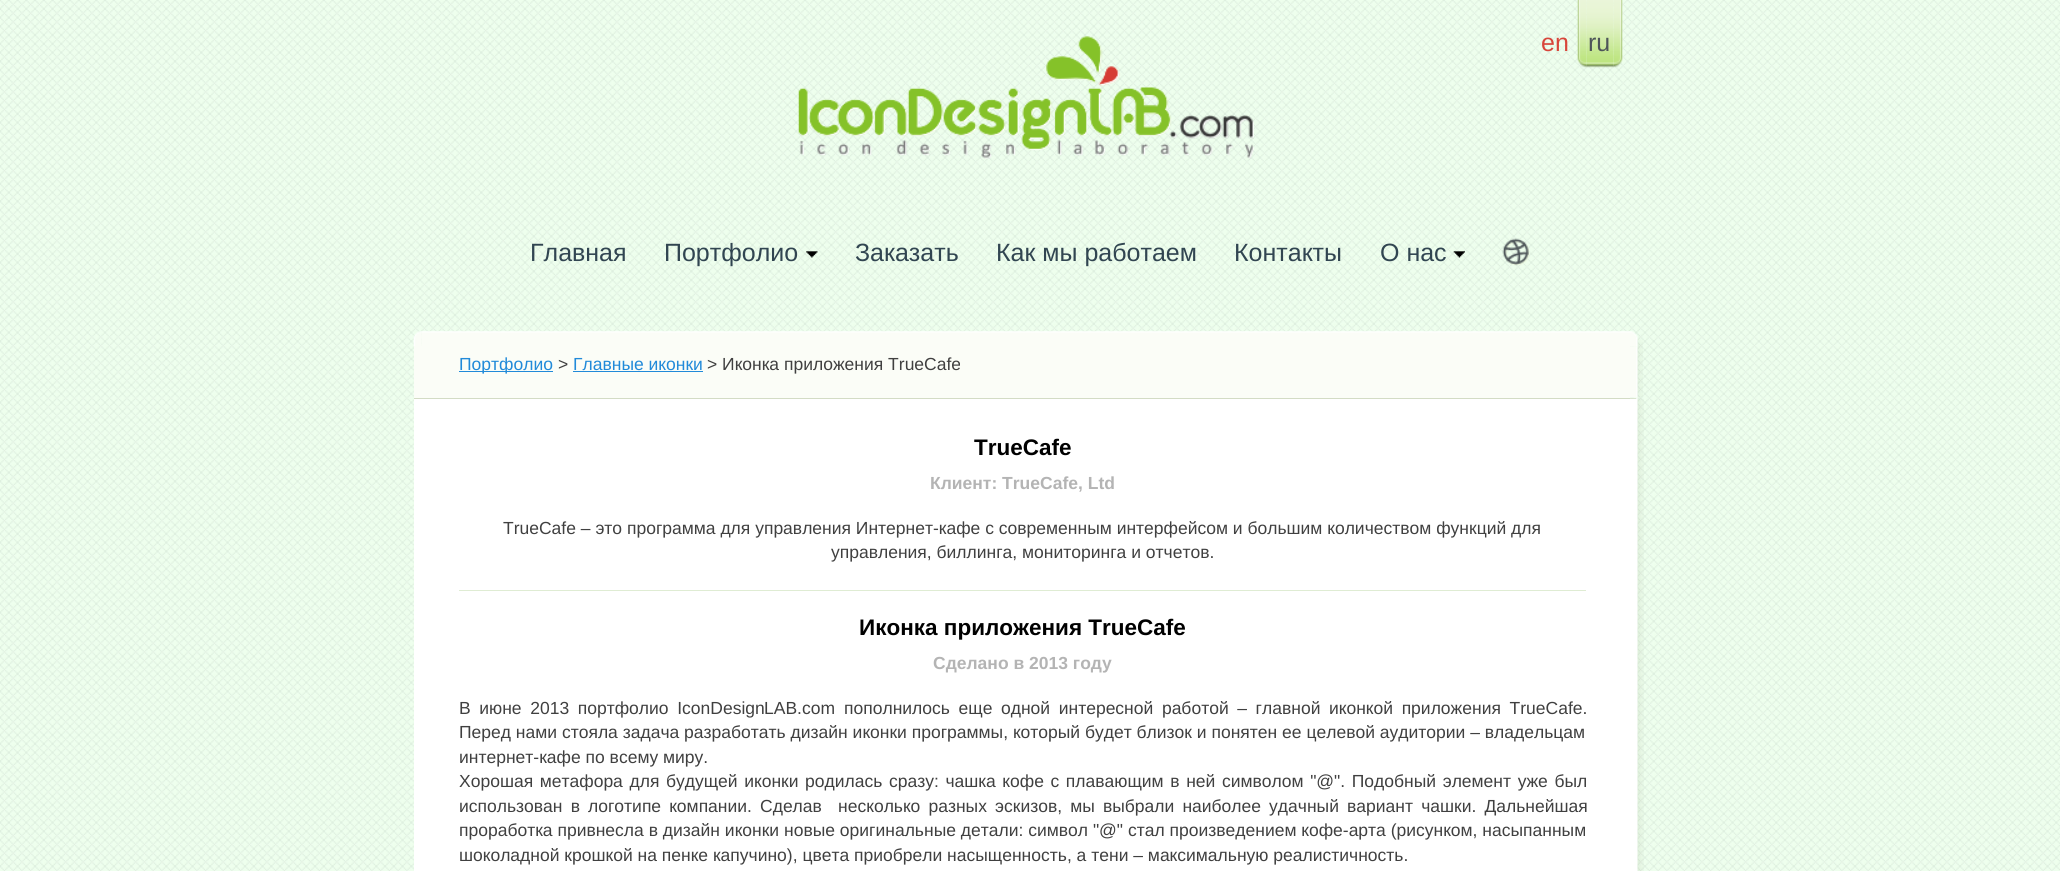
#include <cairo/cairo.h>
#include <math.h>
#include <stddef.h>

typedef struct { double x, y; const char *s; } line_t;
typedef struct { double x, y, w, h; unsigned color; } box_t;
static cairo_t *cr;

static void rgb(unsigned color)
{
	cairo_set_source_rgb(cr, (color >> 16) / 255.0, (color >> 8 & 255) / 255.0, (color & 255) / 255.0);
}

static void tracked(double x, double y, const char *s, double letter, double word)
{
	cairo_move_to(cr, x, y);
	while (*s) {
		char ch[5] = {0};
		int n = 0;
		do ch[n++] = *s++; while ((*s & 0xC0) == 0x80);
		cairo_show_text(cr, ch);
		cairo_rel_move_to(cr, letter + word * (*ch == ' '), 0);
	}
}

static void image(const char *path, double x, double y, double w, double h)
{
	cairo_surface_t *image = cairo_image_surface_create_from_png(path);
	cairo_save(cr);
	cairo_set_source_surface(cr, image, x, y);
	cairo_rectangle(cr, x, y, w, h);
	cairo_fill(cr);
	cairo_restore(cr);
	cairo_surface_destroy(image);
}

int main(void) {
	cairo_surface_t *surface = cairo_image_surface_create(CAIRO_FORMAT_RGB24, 2060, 871);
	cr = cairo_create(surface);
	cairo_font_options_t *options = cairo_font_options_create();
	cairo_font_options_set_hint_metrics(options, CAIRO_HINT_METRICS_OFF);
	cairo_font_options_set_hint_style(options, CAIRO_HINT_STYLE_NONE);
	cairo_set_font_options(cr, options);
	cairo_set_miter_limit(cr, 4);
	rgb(0xffffff);
	cairo_paint(cr);
	image("img/1.png", 0, 0, 2060, 871);
	image("img/2.png", 798, 36, 456, 123);
	image("img/3.png", 1577, 0, 10, 68);
	image("img/4.png", 1586, 0, 28, 68);
	image("img/5.png", 1613, 0, 10, 68);
	image("img/6.png", 806, 251, 12, 7);
	image("img/7.png", 1453, 251, 12, 7);
	image("img/8.png", 1502, 238, 28, 28);
	image("img/9.png", 413, 331, 9, 16);
	image("img/10.png", 421, 331, 1209, 15);
	image("img/11.png", 1630, 331, 13, 16);
	rgb(0xfbfdf7);
	cairo_rectangle(cr, 414, 346, 1216, 52);
	cairo_fill(cr);
	image("img/12.png", 1630, 346, 13, 52);
	{
		static const box_t items[] = {
			{459, 371, 94, 1, 0x218ad9},
			{573, 371, 130, 1, 0x218ad9},
			{414, 398, 1216, 1, 0xd3dcc5},
		};
		for (size_t i = 0; i < sizeof items / sizeof *items; i++) {
			rgb(items[i].color);
			cairo_rectangle(cr, items[i].x, items[i].y, items[i].w, items[i].h);
			cairo_fill(cr);
		}
	}
	image("img/14.png", 1630, 398, 14, 473);
	image("img/13.png", 1630, 398, 12, 1);
	rgb(0xffffff);
	cairo_rectangle(cr, 414, 399, 1216, 472);
	cairo_fill(cr);
	rgb(0xdfecd3);
	cairo_rectangle(cr, 459, 590, 1127, 1);
	cairo_fill(cr);
	cairo_select_font_face(cr, "Liberation Sans", CAIRO_FONT_SLANT_NORMAL, CAIRO_FONT_WEIGHT_NORMAL);
	cairo_set_font_size(cr, 25);
	rgb(0xd8453a);
	cairo_move_to(cr, 1541, 51);
	cairo_show_text(cr, "en");
	rgb(0x4e5559);
	cairo_move_to(cr, 1588, 51);
	cairo_show_text(cr, "ru");
	rgb(0x314551);
	{
		static const line_t items[] = {
			{530, 261, "Главная"},
			{664, 261, "Портфолио"},
			{855, 261, "Заказать"},
			{996, 261, "Как мы работаем"},
			{1234, 261, "Контакты"},
			{1380, 261, "О нас"},
		};
		for (size_t i = 0; i < sizeof items / sizeof *items; i++) {
			cairo_move_to(cr, items[i].x, items[i].y);
			cairo_show_text(cr, items[i].s);
		}
	}
	cairo_set_font_size(cr, 17.5);
	rgb(0x218ad9);
	cairo_move_to(cr, 459, 370);
	cairo_show_text(cr, "Портфолио");
	rgb(0x404040);
	cairo_move_to(cr, 558, 370);
	cairo_show_text(cr, ">");
	rgb(0x218ad9);
	cairo_move_to(cr, 573, 370);
	cairo_show_text(cr, "Главные иконки");
	rgb(0x404040);
	cairo_move_to(cr, 707, 370);
	cairo_show_text(cr, "> Иконка приложения TrueCafe");
	cairo_select_font_face(cr, "Liberation Sans", CAIRO_FONT_SLANT_NORMAL, CAIRO_FONT_WEIGHT_BOLD);
	cairo_set_font_size(cr, 22.5);
	rgb(0x000000);
	cairo_move_to(cr, 974, 455);
	cairo_show_text(cr, "TrueCafe");
	cairo_set_font_size(cr, 17.5);
	rgb(0xb4b4b4);
	cairo_move_to(cr, 930, 489);
	cairo_show_text(cr, "Клиент: TrueCafe, Ltd");
	cairo_select_font_face(cr, "Liberation Sans", CAIRO_FONT_SLANT_NORMAL, CAIRO_FONT_WEIGHT_NORMAL);
	rgb(0x404040);
	cairo_move_to(cr, 503, 534);
	cairo_show_text(cr, "TrueCafe – это программа для управления Интернет-кафе с современным интерфейсом и большим количеством функций для");
	cairo_move_to(cr, 831, 558);
	cairo_show_text(cr, "управления, биллинга, мониторинга и отчетов.");
	cairo_select_font_face(cr, "Liberation Sans", CAIRO_FONT_SLANT_NORMAL, CAIRO_FONT_WEIGHT_BOLD);
	cairo_set_font_size(cr, 22.5);
	rgb(0x000000);
	cairo_move_to(cr, 859, 635);
	cairo_show_text(cr, "Иконка приложения TrueCafe");
	cairo_set_font_size(cr, 17.5);
	rgb(0xb4b4b4);
	cairo_move_to(cr, 933, 669);
	cairo_show_text(cr, "Сделано в 2013 году");
	cairo_select_font_face(cr, "Liberation Sans", CAIRO_FONT_SLANT_NORMAL, CAIRO_FONT_WEIGHT_NORMAL);
	rgb(0x404040);
	tracked(459, 714, "В июне 2013 портфолио IconDesign", 0, 3.75);
	cairo_move_to(cr, 764, 714);
	cairo_show_text(cr, "LAB.com");
	tracked(844, 714, "пополнилось еще одной интересной работой – главной иконкой приложения TrueCafe.", 0, 3.75);
	cairo_move_to(cr, 459, 738);
	cairo_show_text(cr, "Перед нами стояла задача разработать дизайн иконки программы, который будет близок и понятен ее целевой аудитории – владельцам");
	cairo_move_to(cr, 459, 763);
	cairo_show_text(cr, "интернет-кафе по всему миру.");
	tracked(459, 787, "Хорошая метафора для будущей иконки родилась сразу: чашка кофе с плавающим в ней символом \"@\". Подобный элемент уже был", 0, 1.75);
	tracked(459, 812, "использован в логотипе компании. Сделав  несколько разных эскизов, мы выбрали наиболее удачный вариант чашки. Дальнейшая", 0, 3.25);
	cairo_move_to(cr, 459, 836);
	cairo_show_text(cr, "проработка привнесла в дизайн иконки новые оригинальные детали: символ \"@\" стал произведением кофе-арта (рисунком, насыпанным");
	cairo_move_to(cr, 459, 861);
	cairo_show_text(cr, "шоколадной крошкой на пенке капучино), цвета приобрели насыщенность, а тени – максимальную реалистичность.");
	cairo_surface_write_to_png(surface, "page.png");
	cairo_font_options_destroy(options);
	cairo_destroy(cr);
	cairo_surface_destroy(surface);
	return 0;
}
